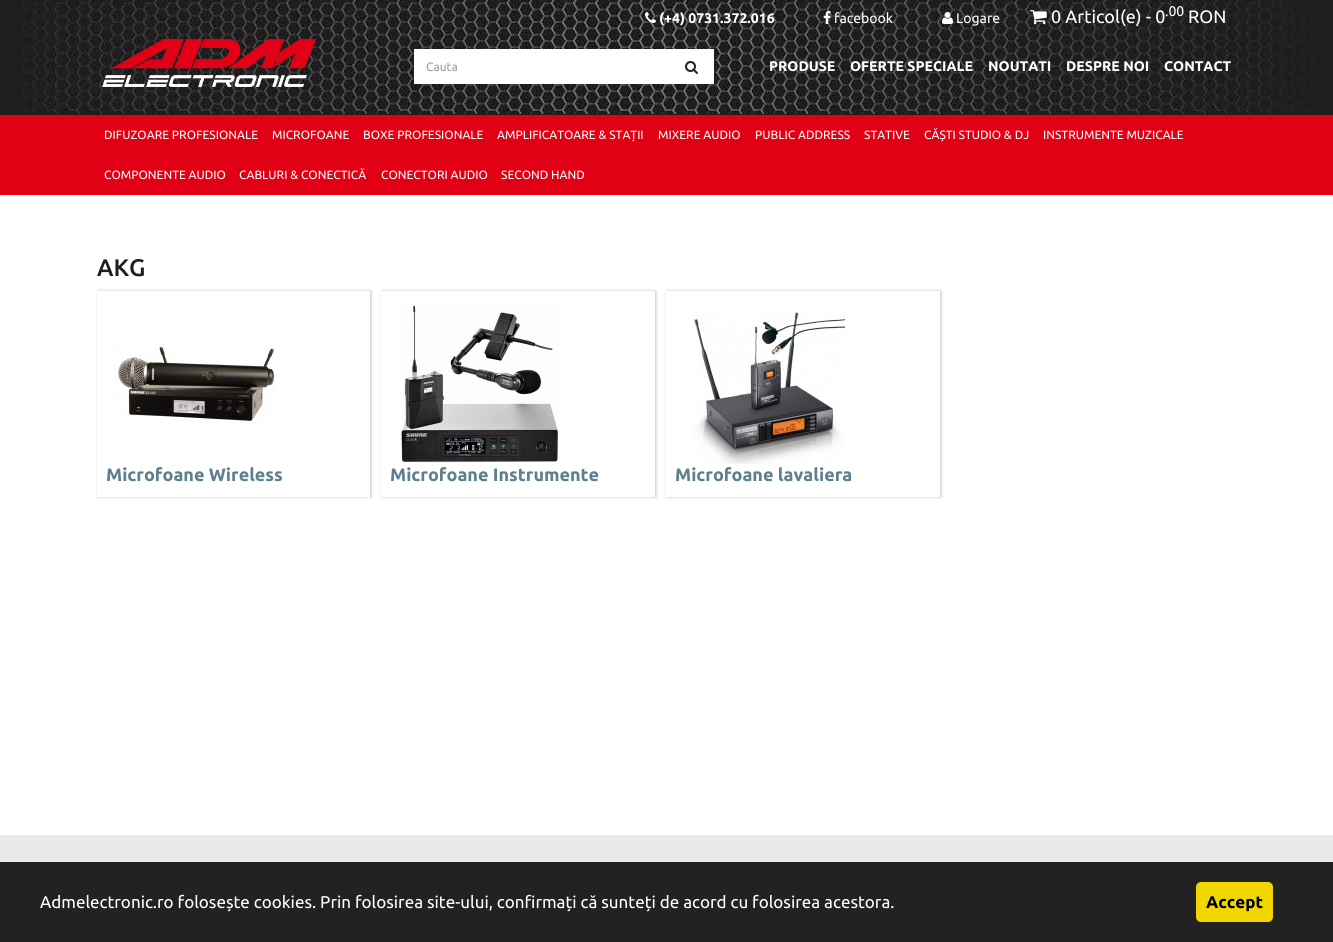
#include <cairo/cairo.h>
#include <math.h>
#include <stddef.h>

typedef struct { double x, y; const char *s; } line_t;
static cairo_t *cr;

static void rgb(unsigned color)
{
	cairo_set_source_rgb(cr, (color >> 16) / 255.0, (color >> 8 & 255) / 255.0, (color & 255) / 255.0);
}

static void rrect(double x, double y, double w, double h, double r)
{
	cairo_new_sub_path(cr);
	cairo_arc(cr, x + w - r, y + h - r, r, 0, M_PI / 2);
	cairo_arc(cr, x + r, y + h - r, r, M_PI / 2, M_PI);
	cairo_arc(cr, x + r, y + r, r, M_PI, 1.5 * M_PI);
	cairo_arc(cr, x + w - r, y + r, r, 1.5 * M_PI, 2 * M_PI);
	cairo_close_path(cr);
}

static void soft_shadow(double x, double y, double w, double h, double r, double blur, double alpha)
{
	cairo_push_group_with_content(cr, CAIRO_CONTENT_ALPHA);
	cairo_set_operator(cr, CAIRO_OPERATOR_SOURCE);
	for (int i = 15; i >= -15 && fmin(w, h) + blur * i / 3 > 0; i -= 2) {
		double e = blur * i / 6;
		cairo_set_source_rgba(cr, 0, 0, 0, alpha * erfc((i - 1) / 8.5) / 2);
		rrect(x - e, y - e, w + 2 * e, h + 2 * e, fmax(0, fmin(r + e + blur * .6, fmin(w, h) / 2 + e)));
		cairo_fill(cr);
	}
	cairo_pattern_t *soft = cairo_pop_group(cr);
	cairo_mask(cr, soft);
	cairo_pattern_destroy(soft);
}

static void image(const char *path, double x, double y, double w, double h)
{
	cairo_surface_t *image = cairo_image_surface_create_from_png(path);
	cairo_save(cr);
	cairo_set_source_surface(cr, image, x, y);
	cairo_rectangle(cr, x, y, w, h);
	cairo_fill(cr);
	cairo_restore(cr);
	cairo_surface_destroy(image);
}

int main(void) {
	cairo_surface_t *surface = cairo_image_surface_create(CAIRO_FORMAT_RGB24, 1333, 942);
	cr = cairo_create(surface);
	cairo_font_options_t *options = cairo_font_options_create();
	cairo_font_options_set_hint_metrics(options, CAIRO_HINT_METRICS_OFF);
	cairo_font_options_set_hint_style(options, CAIRO_HINT_STYLE_NONE);
	cairo_set_font_options(cr, options);
	cairo_set_miter_limit(cr, 4);
	rgb(0xffffff);
	cairo_paint(cr);
	rgb(0x1e1e1e);
	cairo_rectangle(cr, 0, 0, 1333, 115);
	cairo_fill(cr);
	image("img/1.png", 21, 0, 1295, 114);
	image("img/2.png", 645, 12, 11, 11);
	image("img/3.png", 823, 11, 8, 13);
	image("img/4.png", 942, 12, 11, 12);
	image("img/5.png", 1030, 10, 17, 15);
	image("img/6.png", 102, 39, 214, 48);
	rgb(0xffffff);
	cairo_rectangle(cr, 414, 49, 300, 35);
	cairo_fill(cr);
	image("img/7.png", 685, 61, 13, 13);
	rgb(0xe10014);
	cairo_rectangle(cr, 0, 115, 1333, 80);
	cairo_fill(cr);
	cairo_save(cr);
	cairo_set_fill_rule(cr, CAIRO_FILL_RULE_EVEN_ODD);
	cairo_new_path(cr);
	cairo_move_to(cr, 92, 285);
	cairo_line_to(cr, 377, 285);
	cairo_line_to(cr, 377, 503);
	cairo_line_to(cr, 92, 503);
	cairo_close_path(cr);
	cairo_move_to(cr, 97, 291);
	cairo_line_to(cr, 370, 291);
	cairo_line_to(cr, 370, 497);
	cairo_line_to(cr, 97, 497);
	cairo_close_path(cr);
	cairo_clip(cr);
	rgb(0x323232);
	soft_shadow(98, 291, 273, 206, 0, 1.5, 0.31);
	cairo_restore(cr);
	image("img/8.png", 106, 344, 169, 80);
	cairo_save(cr);
	cairo_set_fill_rule(cr, CAIRO_FILL_RULE_EVEN_ODD);
	cairo_new_path(cr);
	cairo_move_to(cr, 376, 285);
	cairo_line_to(cr, 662, 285);
	cairo_line_to(cr, 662, 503);
	cairo_line_to(cr, 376, 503);
	cairo_close_path(cr);
	cairo_move_to(cr, 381, 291);
	cairo_line_to(cr, 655, 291);
	cairo_line_to(cr, 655, 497);
	cairo_line_to(cr, 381, 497);
	cairo_close_path(cr);
	cairo_clip(cr);
	rgb(0x323232);
	soft_shadow(382, 291, 274, 206, 0, 1.5, 0.31);
	cairo_restore(cr);
	image("img/9.png", 401, 305, 157, 158);
	cairo_save(cr);
	cairo_set_fill_rule(cr, CAIRO_FILL_RULE_EVEN_ODD);
	cairo_new_path(cr);
	cairo_move_to(cr, 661, 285);
	cairo_line_to(cr, 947, 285);
	cairo_line_to(cr, 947, 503);
	cairo_line_to(cr, 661, 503);
	cairo_close_path(cr);
	cairo_move_to(cr, 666, 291);
	cairo_line_to(cr, 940, 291);
	cairo_line_to(cr, 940, 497);
	cairo_line_to(cr, 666, 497);
	cairo_close_path(cr);
	cairo_clip(cr);
	rgb(0x323232);
	soft_shadow(667, 291, 274, 206, 0, 1.5, 0.31);
	cairo_restore(cr);
	image("img/10.png", 691, 312, 158, 152);
	rgb(0xeaeaea);
	cairo_rectangle(cr, 0, 835, 1333, 27);
	cairo_fill(cr);
	rgb(0x222222);
	cairo_rectangle(cr, 0, 862, 1333, 80);
	cairo_fill(cr);
	rgb(0xf1d600);
	rrect(1196, 882, 77, 40, 5);
	cairo_fill(cr);
	cairo_select_font_face(cr, "Ubuntu", CAIRO_FONT_SLANT_NORMAL, CAIRO_FONT_WEIGHT_BOLD);
	cairo_set_font_size(cr, 14);
	rgb(0xffffff);
	cairo_move_to(cr, 659, 23);
	cairo_show_text(cr, "(+4) 0731.372.016");
	cairo_select_font_face(cr, "Ubuntu", CAIRO_FONT_SLANT_NORMAL, CAIRO_FONT_WEIGHT_NORMAL);
	cairo_move_to(cr, 834, 23);
	cairo_show_text(cr, "facebook");
	cairo_move_to(cr, 956, 23);
	cairo_show_text(cr, "Logare");
	cairo_set_font_size(cr, 18);
	cairo_move_to(cr, 1051, 23);
	cairo_show_text(cr, "0 Articol(e) - 0");
	cairo_set_font_size(cr, 14);
	cairo_move_to(cr, 1165, 16);
	cairo_show_text(cr, ".00");
	cairo_set_font_size(cr, 18);
	cairo_move_to(cr, 1188, 23);
	cairo_show_text(cr, "RON");
	cairo_set_font_size(cr, 12);
	rgb(0x999999);
	cairo_move_to(cr, 426, 71);
	cairo_show_text(cr, "Cauta");
	cairo_select_font_face(cr, "Ubuntu", CAIRO_FONT_SLANT_NORMAL, CAIRO_FONT_WEIGHT_BOLD);
	cairo_set_font_size(cr, 14);
	rgb(0xffffff);
	{
		static const line_t items[] = {
			{769, 71, "PRODUSE"},
			{850, 71, "OFERTE SPECIALE"},
			{988, 71, "NOUTATI"},
			{1066, 71, "DESPRE NOI"},
			{1164, 71, "CONTACT"},
		};
		for (size_t i = 0; i < sizeof items / sizeof *items; i++) {
			cairo_move_to(cr, items[i].x, items[i].y);
			cairo_show_text(cr, items[i].s);
		}
	}
	cairo_select_font_face(cr, "Ubuntu", CAIRO_FONT_SLANT_NORMAL, CAIRO_FONT_WEIGHT_NORMAL);
	cairo_set_font_size(cr, 12);
	{
		static const line_t items[] = {
			{104, 139, "DIFUZOARE PROFESIONALE"},
			{272, 139, "MICROFOANE"},
			{363, 139, "BOXE PROFESIONALE"},
			{497, 139, "AMPLIFICATOARE & STAȚII"},
			{658, 139, "MIXERE AUDIO"},
			{755, 139, "PUBLIC ADDRESS"},
			{864, 139, "STATIVE"},
			{924, 139, "CĂȘTI STUDIO & DJ"},
			{1043, 139, "INSTRUMENTE MUZICALE"},
			{104, 179, "COMPONENTE AUDIO"},
			{239, 179, "CABLURI & CONECTICĂ"},
			{381, 179, "CONECTORI AUDIO"},
			{501, 179, "SECOND HAND"},
		};
		for (size_t i = 0; i < sizeof items / sizeof *items; i++) {
			cairo_move_to(cr, items[i].x, items[i].y);
			cairo_show_text(cr, items[i].s);
		}
	}
	cairo_select_font_face(cr, "Ubuntu Medium", CAIRO_FONT_SLANT_NORMAL, CAIRO_FONT_WEIGHT_NORMAL);
	cairo_set_font_size(cr, 24);
	rgb(0x1e1e1e);
	cairo_move_to(cr, 97, 276);
	cairo_show_text(cr, "AKG");
	cairo_select_font_face(cr, "Ubuntu", CAIRO_FONT_SLANT_NORMAL, CAIRO_FONT_WEIGHT_BOLD);
	cairo_set_font_size(cr, 18);
	rgb(0x5c8090);
	{
		static const line_t items[] = {
			{106, 481, "Microfoane Wireless"},
			{390, 481, "Microfoane Instrumente"},
			{675, 481, "Microfoane lavaliera"},
		};
		for (size_t i = 0; i < sizeof items / sizeof *items; i++) {
			cairo_move_to(cr, items[i].x, items[i].y);
			cairo_show_text(cr, items[i].s);
		}
	}
	cairo_select_font_face(cr, "Ubuntu", CAIRO_FONT_SLANT_NORMAL, CAIRO_FONT_WEIGHT_NORMAL);
	cairo_set_font_size(cr, 17);
	rgb(0xffffff);
	cairo_move_to(cr, 40, 908);
	cairo_show_text(cr, "Admelectronic.ro folosește cookies. Prin folosirea site-ului, confirmați că sunteți de acord cu folosirea acestora.");
	cairo_select_font_face(cr, "Ubuntu", CAIRO_FONT_SLANT_NORMAL, CAIRO_FONT_WEIGHT_BOLD);
	rgb(0x000000);
	cairo_move_to(cr, 1206, 908);
	cairo_show_text(cr, "Accept");
	cairo_surface_write_to_png(surface, "page.png");
	cairo_font_options_destroy(options);
	cairo_destroy(cr);
	cairo_surface_destroy(surface);
	return 0;
}
